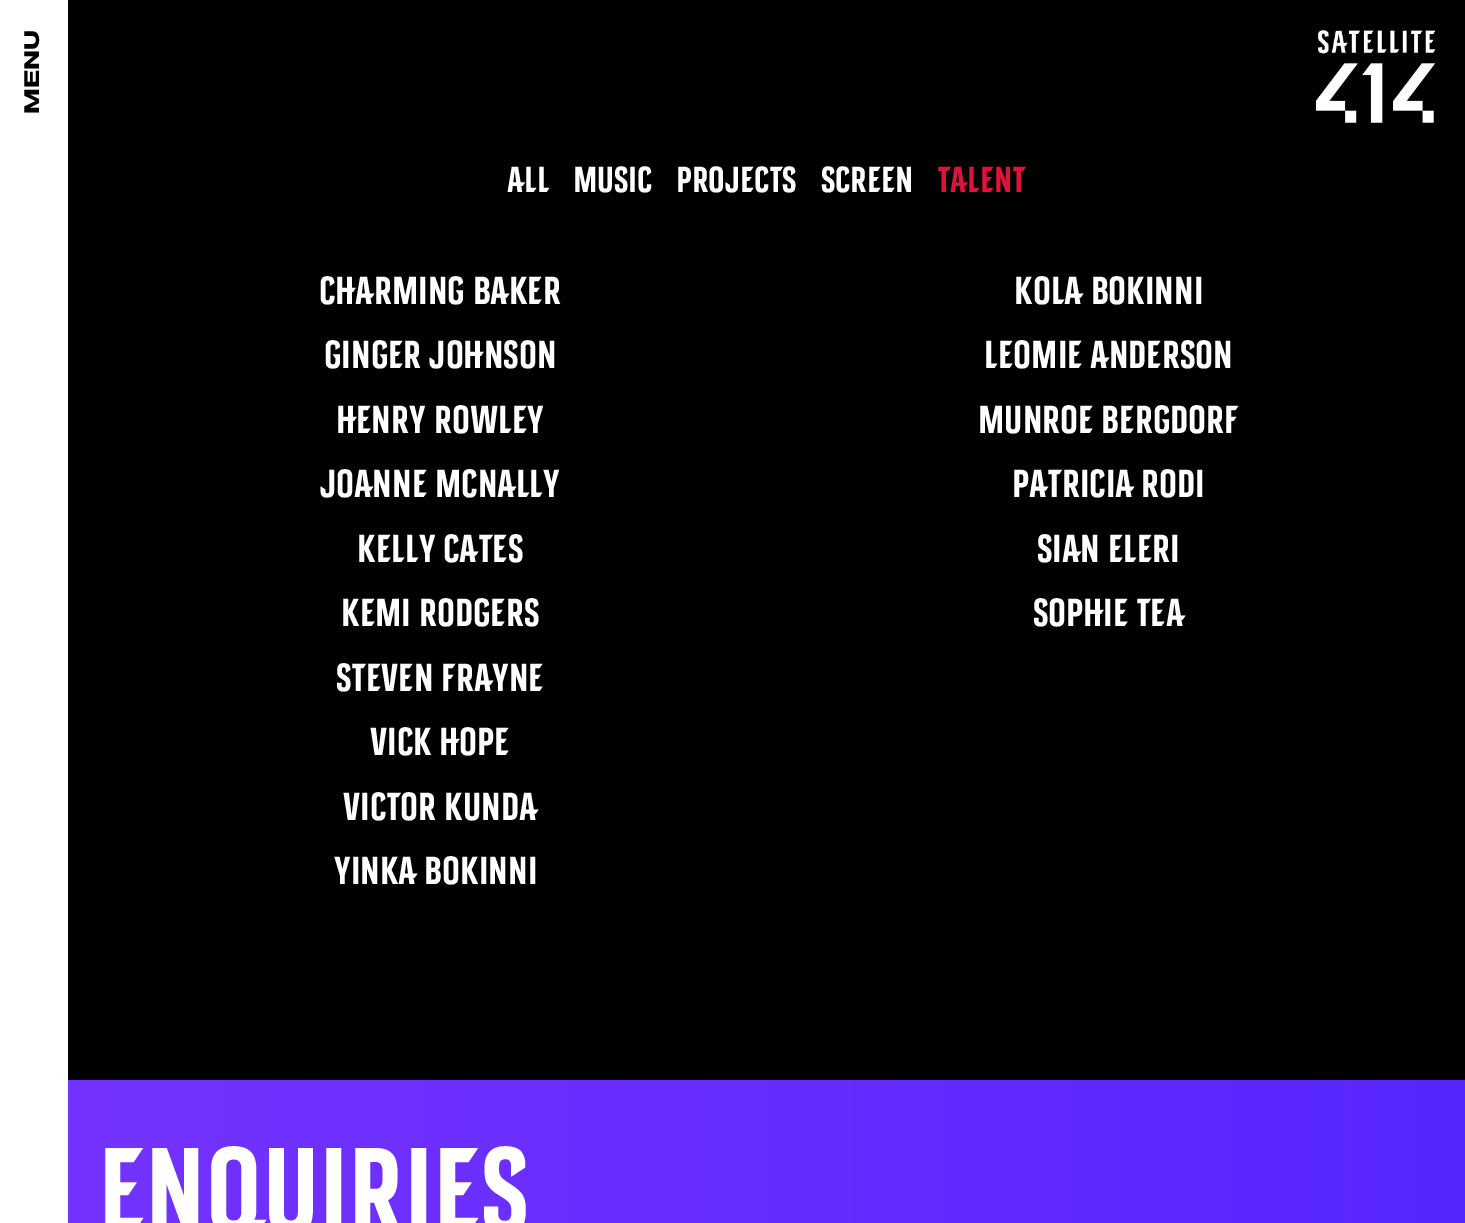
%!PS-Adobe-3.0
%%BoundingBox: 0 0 1465 1223
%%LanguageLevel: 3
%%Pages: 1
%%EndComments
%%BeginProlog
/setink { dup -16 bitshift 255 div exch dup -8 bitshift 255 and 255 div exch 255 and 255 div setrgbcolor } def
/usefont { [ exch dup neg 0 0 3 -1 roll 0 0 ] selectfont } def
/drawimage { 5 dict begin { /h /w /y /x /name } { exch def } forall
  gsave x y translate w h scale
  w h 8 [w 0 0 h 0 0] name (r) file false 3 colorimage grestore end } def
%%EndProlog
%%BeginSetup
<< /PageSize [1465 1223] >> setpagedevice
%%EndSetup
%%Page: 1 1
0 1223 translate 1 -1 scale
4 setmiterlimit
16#000000 setink
0 0 1465 1223 rectfill
16#FFFFFF setink
0 0 68 1223 rectfill
/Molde-Bold 21 usefont
16#000000 setink
gsave 39 114 translate -90 rotate 0 0 moveto (MENU) show grestore
(img1.raw) 1316 30 120 93 drawimage
/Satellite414-Regular 36 usefont
16#FFFFFF setink
[
    [(ALL) 507 192]
    [(MUSIC) 573 192]
    [(PROJECTS) 676 192]
    [(SCREEN) 821 192]
] { aload pop moveto show } forall
16#DC143C setink
937 192 moveto (TALENT) show
/Satellite414-Regular 39 usefont
16#FFFFFF setink
[
    [(CHARMING BAKER) 319 304]
    [(GINGER JOHNSON) 324 368]
    [(HENRY ROWLEY) 336 433]
    [(JOANNE MCNALLY) 320 497]
    [(KELLY CATES) 357 562]
    [(KEMI RODGERS) 341 626]
    [(KOLA BOKINNI) 1014 304]
    [(LEOMIE ANDERSON) 984 368]
    [(MUNROE BERGDORF) 978 433]
    [(PATRICIA RODI) 1012 497]
    [(SIAN ELERI) 1037 562]
    [(SOPHIE TEA) 1033 626]
    [(STEVEN FRAYNE) 336 691]
    [(VICK HOPE) 370 755]
    [(VICTOR KUNDA) 343 820]
    [(YINKA BOKINNI) 334 884]
] { aload pop moveto show } forall
gsave 68 1080 moveto 1465 1080 lineto 1465 1223 lineto 68 1223 lineto closepath clip newpath
<< /ShadingType 2 /ColorSpace /DeviceRGB /Coords [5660 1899 68 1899] /Extend [true true] /Function << /FunctionType 2 /Domain [0 1] /C0 [0 0 1] /C1 [0.455 0.2 1] /N 1 >> >> shfill grestore
/Satellite414-Regular 120 usefont
98 1232 moveto (ENQUIRIES) show
showpage
%%EOF
